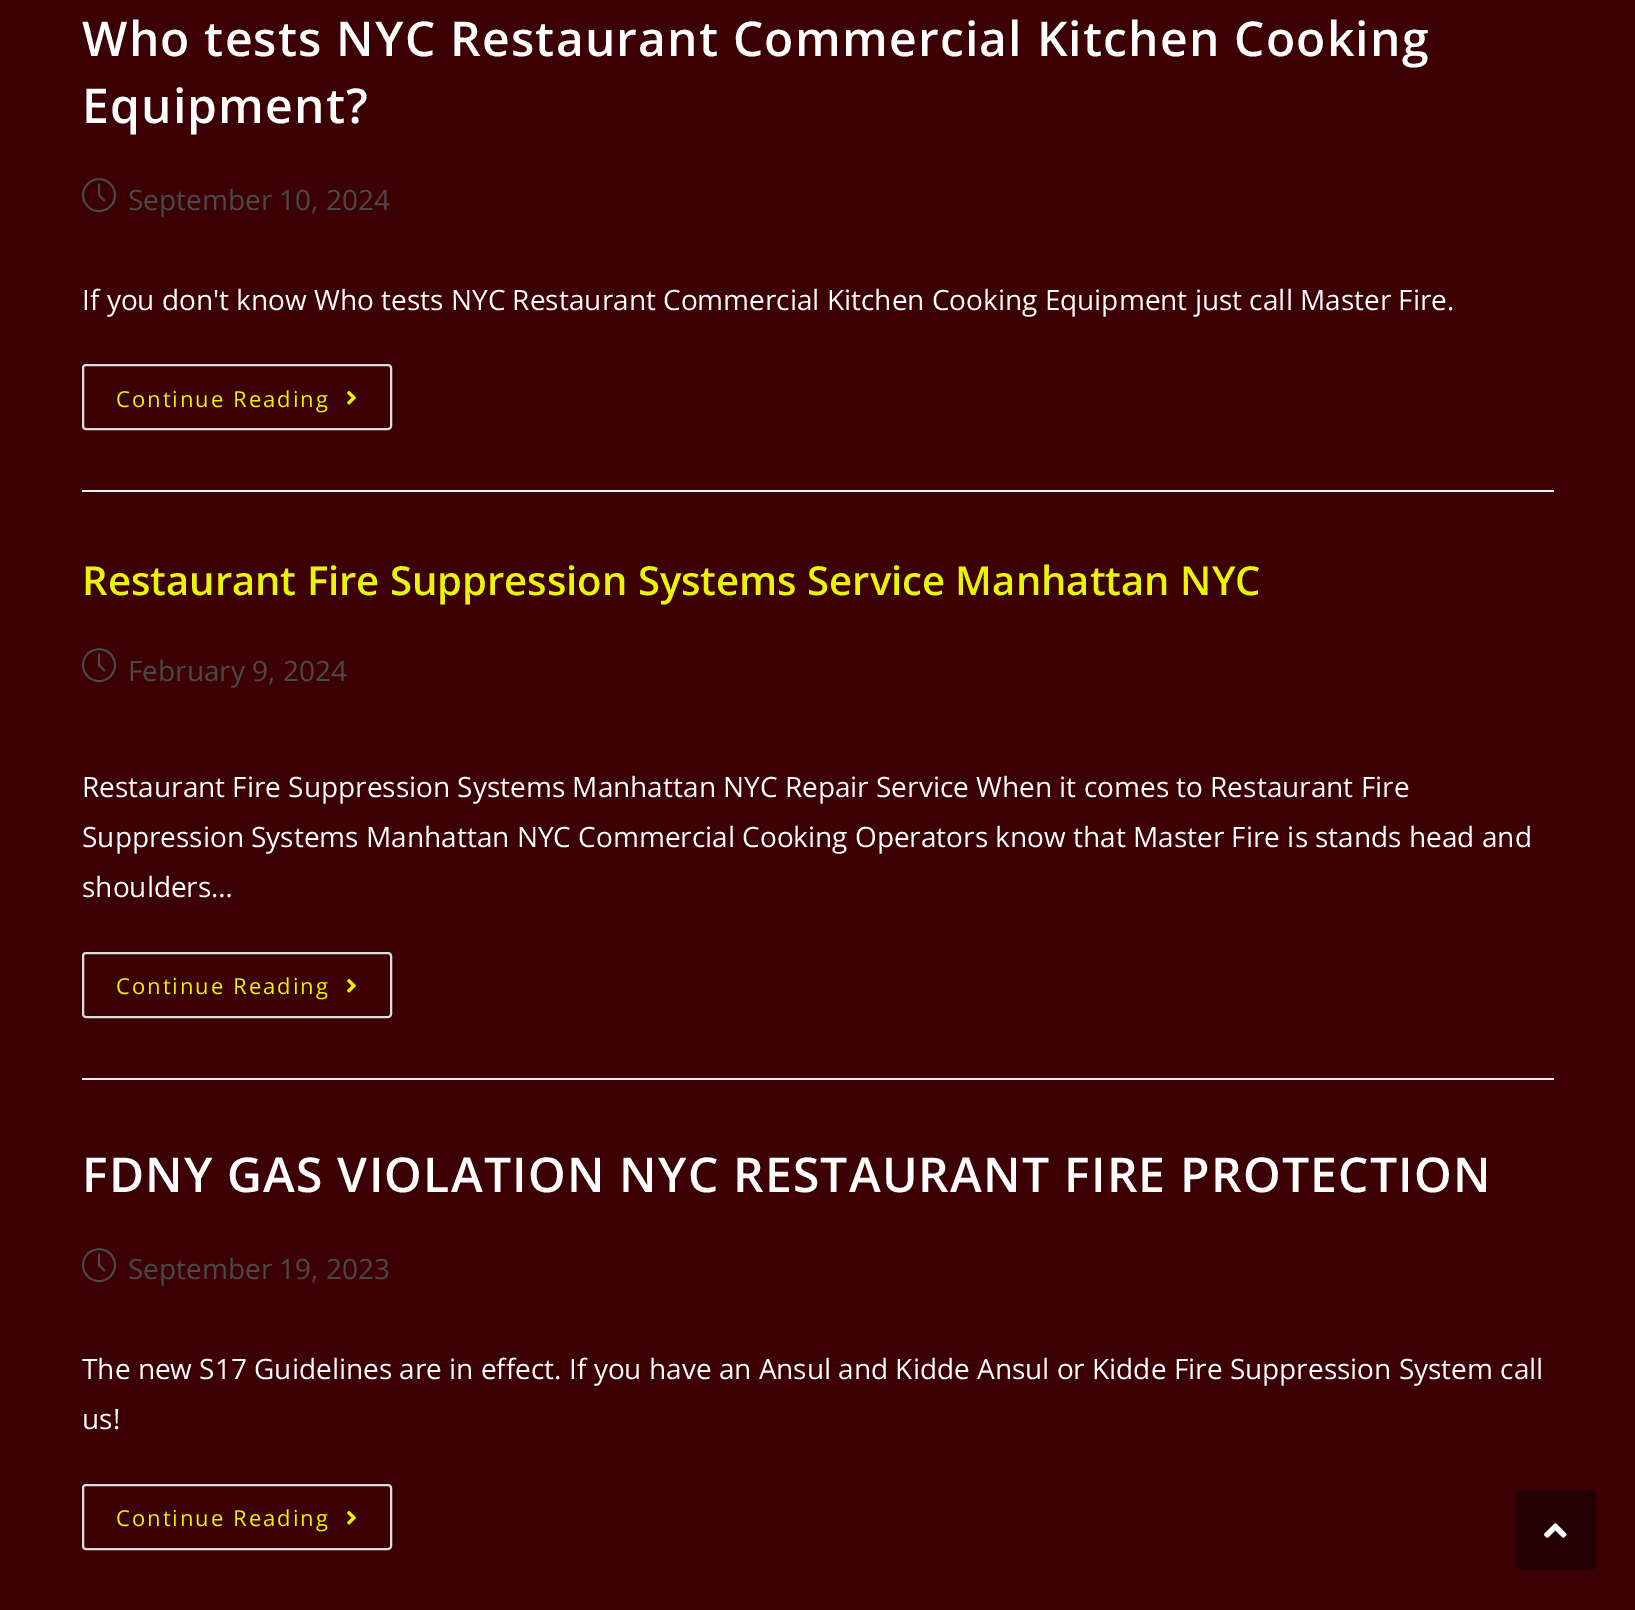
%!PS-Adobe-3.0
%%BoundingBox: 0 0 1635 1610
%%LanguageLevel: 3
%%Pages: 1
%%EndComments
%%BeginProlog
/setink { dup -16 bitshift 255 div exch dup -8 bitshift 255 and 255 div exch 255 and 255 div setrgbcolor } def
/usefont { [ exch dup neg 0 0 3 -1 roll 0 0 ] selectfont } def
/rrect { 5 dict begin { /r /h /w /y /x } { exch def } forall
  x r add y moveto x w add y 2 copy h add r arct x w add y h add x 1 index r arct
  x y h add x y r arct x y 2 copy exch w add exch r arct closepath end } def
/drawimage { 5 dict begin { /h /w /y /x /name } { exch def } forall
  gsave x y translate w h scale
  w h 8 [w 0 0 h 0 0] name (r) file false 3 colorimage grestore end } def
%%EndProlog
%%BeginSetup
<< /PageSize [1635 1610] >> setpagedevice
%%EndSetup
%%Page: 1 1
0 1610 translate 1 -1 scale
4 setmiterlimit
16#3C0004 setink
0 0 1635 1610 rectfill
16#F1F1F1 setink
82 490 1472 2 rectfill
/OpenSans-SemiBold 48 usefont
16#FFFFFF setink
82 56 moveto 1.2 0 (Who tests NYC Restaurant Commercial Kitchen Cooking) ashow
82 123 moveto 1.2 0 (Equipment?) ashow
(img1.raw) 82 178 34 35 drawimage
/OpenSans-Regular 28 usefont
16#4A4A4A setink
128 210 moveto (September 10, 2024) show
16#FFFFFF setink
82 310 moveto (If you don't know Who tests NYC Restaurant Commercial Kitchen Cooking Equipment just call Master Fire.) show
16#DDDDDD setink
2 setlinewidth
83 365 308 64 3 rrect stroke
/OpenSans-Regular 22 usefont
16#E8F602 setink
116 407 moveto 2 0 (Continue Reading) ashow
(img2.raw) 347 390 9 15 drawimage
16#F1F1F1 setink
82 1078 1472 2 rectfill
/OpenSans-SemiBold 40 usefont
16#E8F602 setink
82 595 moveto (Restaurant Fire Suppression Systems Service Manhattan NYC) show
(img1.raw) 82 648 34 35 drawimage
/OpenSans-Regular 28 usefont
16#4A4A4A setink
128 681 moveto (February 9, 2024) show
16#FFFFFF setink
[
    [(Restaurant Fire Suppression Systems Manhattan NYC Repair Service When it comes to Restaurant Fire) 82 797]
    [(Suppression Systems Manhattan NYC Commercial Cooking Operators know that Master Fire is stands head and) 82 847]
    [(shoulders…) 82 897]
] { aload pop moveto show } forall
16#DDDDDD setink
83 953 308 64 3 rrect stroke
/OpenSans-Regular 22 usefont
16#E8F602 setink
116 994 moveto 2 0 (Continue Reading) ashow
(img2.raw) 347 978 9 15 drawimage
/OpenSans-SemiBold 48 usefont
16#FFFFFF setink
82 1192 moveto 1.2 0 (FDNY GAS VIOLATION NYC RESTAURANT FIRE PROTECTION) ashow
(img1.raw) 82 1248 34 35 drawimage
/OpenSans-Regular 28 usefont
16#4A4A4A setink
128 1279 moveto (September 19, 2023) show
16#FFFFFF setink
82 1379 moveto (The new S17 Guidelines are in effect. If you have an Ansul and Kidde Ansul or Kidde Fire Suppression System call) show
82 1429 moveto (us!) show
16#DDDDDD setink
83 1485 308 64 3 rrect stroke
/OpenSans-Regular 22 usefont
16#E8F602 setink
116 1526 moveto 2 0 (Continue Reading) ashow
(img2.raw) 347 1510 9 15 drawimage
16#240002 setink
1516 1490 80 80 4 rrect fill
(img3.raw) 1544 1523 23 15 drawimage
showpage
%%EOF
